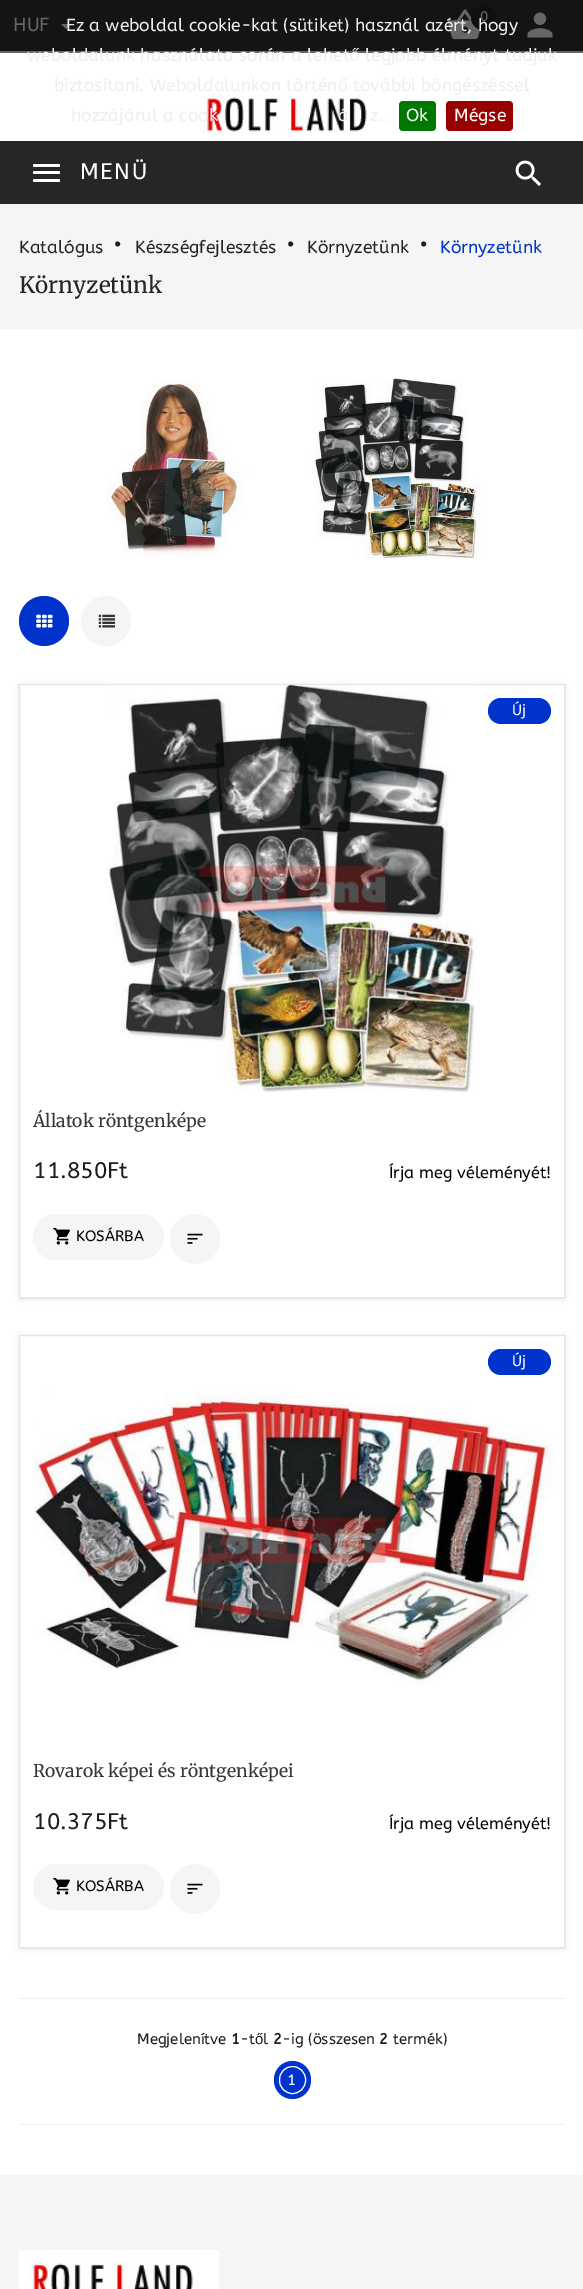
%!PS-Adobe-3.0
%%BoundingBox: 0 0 583 2289
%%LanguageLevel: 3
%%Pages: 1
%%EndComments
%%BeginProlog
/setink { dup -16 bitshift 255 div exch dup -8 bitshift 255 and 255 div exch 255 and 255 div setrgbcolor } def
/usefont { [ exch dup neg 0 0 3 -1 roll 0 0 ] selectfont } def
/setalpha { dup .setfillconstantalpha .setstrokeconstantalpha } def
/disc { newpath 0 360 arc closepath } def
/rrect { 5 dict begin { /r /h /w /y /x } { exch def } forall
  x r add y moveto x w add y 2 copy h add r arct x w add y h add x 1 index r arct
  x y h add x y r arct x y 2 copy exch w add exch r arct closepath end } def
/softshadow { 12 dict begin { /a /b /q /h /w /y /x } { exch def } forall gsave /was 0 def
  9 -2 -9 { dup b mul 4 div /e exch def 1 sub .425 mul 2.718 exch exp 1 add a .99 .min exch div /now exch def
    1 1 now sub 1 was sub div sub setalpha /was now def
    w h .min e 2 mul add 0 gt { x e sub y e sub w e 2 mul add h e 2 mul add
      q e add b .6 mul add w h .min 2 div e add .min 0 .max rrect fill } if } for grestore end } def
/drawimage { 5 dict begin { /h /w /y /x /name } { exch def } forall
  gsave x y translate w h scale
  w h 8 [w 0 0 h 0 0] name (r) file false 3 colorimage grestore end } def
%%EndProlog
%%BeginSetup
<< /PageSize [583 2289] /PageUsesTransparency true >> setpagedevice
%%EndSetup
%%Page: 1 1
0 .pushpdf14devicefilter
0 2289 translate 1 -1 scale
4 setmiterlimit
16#FFFFFF setink
0 0 583 2289 rectfill
16#666666 setink
0 51 583 2 rectfill
16#141414 setink
0 0 583 51 rectfill
/ABeeZee-Regular 19 usefont
16#666666 setink
13 31 moveto (HUF) show
61 24 moveto 71 24 lineto 66 29 lineto closepath fill
(img1.raw) 447 9 34 31 drawimage
16#0F0F0F setink
483.5 17.5 12.5 disc fill
/ABeeZee-Regular 14 usefont
16#666666 setink
480 21 moveto (0) show
(img2.raw) 527 12 26 26 drawimage
(img3.raw) 203 94 164 40 drawimage
16#262626 setink
0 141 583 63 rectfill
16#FFFFFF setink
33 164 27 3 1.5 rrect fill
/ABeeZee-Regular 22.5 usefont
80 179 moveto 1.5 0 (MENÜ) ashow
33 171 27 3 1.5 rrect fill
33 179 27 3 1.5 rrect fill
(img4.raw) 515 160 26 26 drawimage
16#F5F5F5 setink
0 204 583 125 rectfill
/ABeeZee-Regular 17.5 usefont
16#252525 setink
19 253 moveto (Katalógus) show
/ABeeZee-Regular 38 usefont
16#1D1D1D setink
112 246 moveto (.) show
/ABeeZee-Regular 17.5 usefont
16#252525 setink
135 253 moveto (Készségfejlesztés) show
/ABeeZee-Regular 38 usefont
16#1D1D1D setink
285 246 moveto (.) show
/ABeeZee-Regular 17.5 usefont
16#252525 setink
307 253 moveto (Környzetünk) show
/ABeeZee-Regular 38 usefont
16#1D1D1D setink
418 246 moveto (.) show
/ABeeZee-Regular 17.5 usefont
16#0033CC setink
440 253 moveto (Környzetünk) show
/Merriweather-Regular 22.5 usefont
16#252525 setink
19 293 moveto (Környzetünk) show
(img5.raw) 106 378 375 181 drawimage
16#0033CC setink
44 621 25 disc fill
(img6.raw) 36 614 17 14 drawimage
16#F5F5F5 setink
106 621 25 disc fill
(img7.raw) 98 614 17 14 drawimage
gsave
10 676 moveto 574 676 lineto 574 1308 lineto 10 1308 lineto closepath 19 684 moveto 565 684 lineto 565 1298 lineto 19 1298 lineto closepath eoclip newpath
16#000000 setink
19 685 546 614 0 2.5 0.1 softshadow
grestore
0.1 setalpha
16#000000 setink
19.5 684.5 545 613 rectstroke
1 setalpha
(img8.raw) 107 685 369 408 drawimage
16#0033CC setink
488 698 63 26 13 rrect fill
/ABeeZee-Regular 15 usefont
16#FFFFFF setink
512 715 moveto (Új) show
/Merriweather-Regular 17.5 usefont
16#373737 setink
33 1127 moveto (Állatok röntgenképe) show
/ABeeZee-Regular 22.5 usefont
16#1D1D1D setink
33 1178 moveto (11.850Ft) show
/ABeeZee-Regular 16.25 usefont
16#000000 setink
389 1178 moveto (Írja meg véleményét!) show
16#F5F5F5 setink
33 1214 131 46 23 rrect fill
(img9.raw) 53 1227 17 18 drawimage
/ABeeZee-Regular 15 usefont
16#000000 setink
76 1241 moveto (KOSÁRBA) show
16#F5F5F5 setink
195 1239 25 disc fill
(img10.raw) 187 1233 16 11 drawimage
gsave
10 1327 moveto 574 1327 lineto 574 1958 lineto 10 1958 lineto closepath 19 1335 moveto 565 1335 lineto 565 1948 lineto 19 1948 lineto closepath eoclip newpath
16#000000 setink
19 1336 546 613 0 2.5 0.1 softshadow
grestore
0.1 setalpha
16#000000 setink
19.5 1335.5 545 612 rectstroke
1 setalpha
16#0033CC setink
488 1349 63 26 13 rrect fill
16#FFFFFF setink
512 1366 moveto (Új) show
(img11.raw) 33 1391 523 293 drawimage
/Merriweather-Regular 17.5 usefont
16#373737 setink
33 1777 moveto (Rovarok képei és röntgenképei) show
/ABeeZee-Regular 22.5 usefont
16#1D1D1D setink
33 1829 moveto (10.375Ft) show
/ABeeZee-Regular 16.25 usefont
16#000000 setink
389 1829 moveto (Írja meg véleményét!) show
16#F5F5F5 setink
33 1864 131 46 23 rrect fill
(img9.raw) 53 1877 17 18 drawimage
/ABeeZee-Regular 15 usefont
16#000000 setink
76 1891 moveto (KOSÁRBA) show
16#F5F5F5 setink
195 1889 25 disc fill
(img10.raw) 187 1883 16 11 drawimage
16#EFEFEF setink
19 1998 546 1 rectfill
19 2124 546 1 rectfill
16#1D1D1D setink
137 2044 moveto (Megjelenítve) show
/ABeeZee-Bold 15 usefont
231 2044 moveto (1) show
/ABeeZee-Regular 15 usefont
240 2044 moveto (-t) show
/LiberationSans-Regular 15 usefont
255 2044 moveto (ő) show
/ABeeZee-Regular 15 usefont
263 2044 moveto (l) show
/ABeeZee-Bold 15 usefont
273 2044 moveto (2) show
/ABeeZee-Regular 15 usefont
282 2044 moveto (-ig \(összesen) show
/ABeeZee-Bold 15 usefont
379 2044 moveto (2) show
/ABeeZee-Regular 15 usefont
393 2044 moveto (termék\)) show
16#0033CC setink
274 2061 37 38 18.5 rrect fill
16#FFFFFF setink
279.5 2066.5 26 27 13 rrect stroke
287 2085 moveto (1) show
16#F5F5F5 setink
0 2175 583 114 rectfill
(img12.raw) 19 2250 200 39 drawimage
/ABeeZee-Regular 17.5 usefont
16#EEEEEE setink
66 31 moveto (Ez a weboldal cookie-kat \(sütiket\) használ azért, hogy) show
27 61 moveto (weboldalunk használata során a lehet) show
/LiberationSans-Regular 17.5 usefont
350 61 moveto (ő) show
/ABeeZee-Regular 17.5 usefont
365 61 moveto (legjobb élményt tudjuk) show
54 91 moveto (biztosítani. Weboldalunkon történ) show
/LiberationSans-Regular 17.5 usefont
338 91 moveto (ő) show
/ABeeZee-Regular 17.5 usefont
[
    [(további böngészéssel) 353 91]
    [(hozzájárul a cook) 71 121]
    [(á) 338 121]
    [(z..) 370 121]
] { aload pop moveto show } forall
16#007700 setink
399 101 37 30 4 rrect fill
16#FFFFFF setink
406 121 moveto (Ok) show
16#990000 setink
446 101 67 30 4 rrect fill
16#FFFFFF setink
454 121 moveto (Mégse) show
.poppdf14devicefilter showpage
%%EOF
